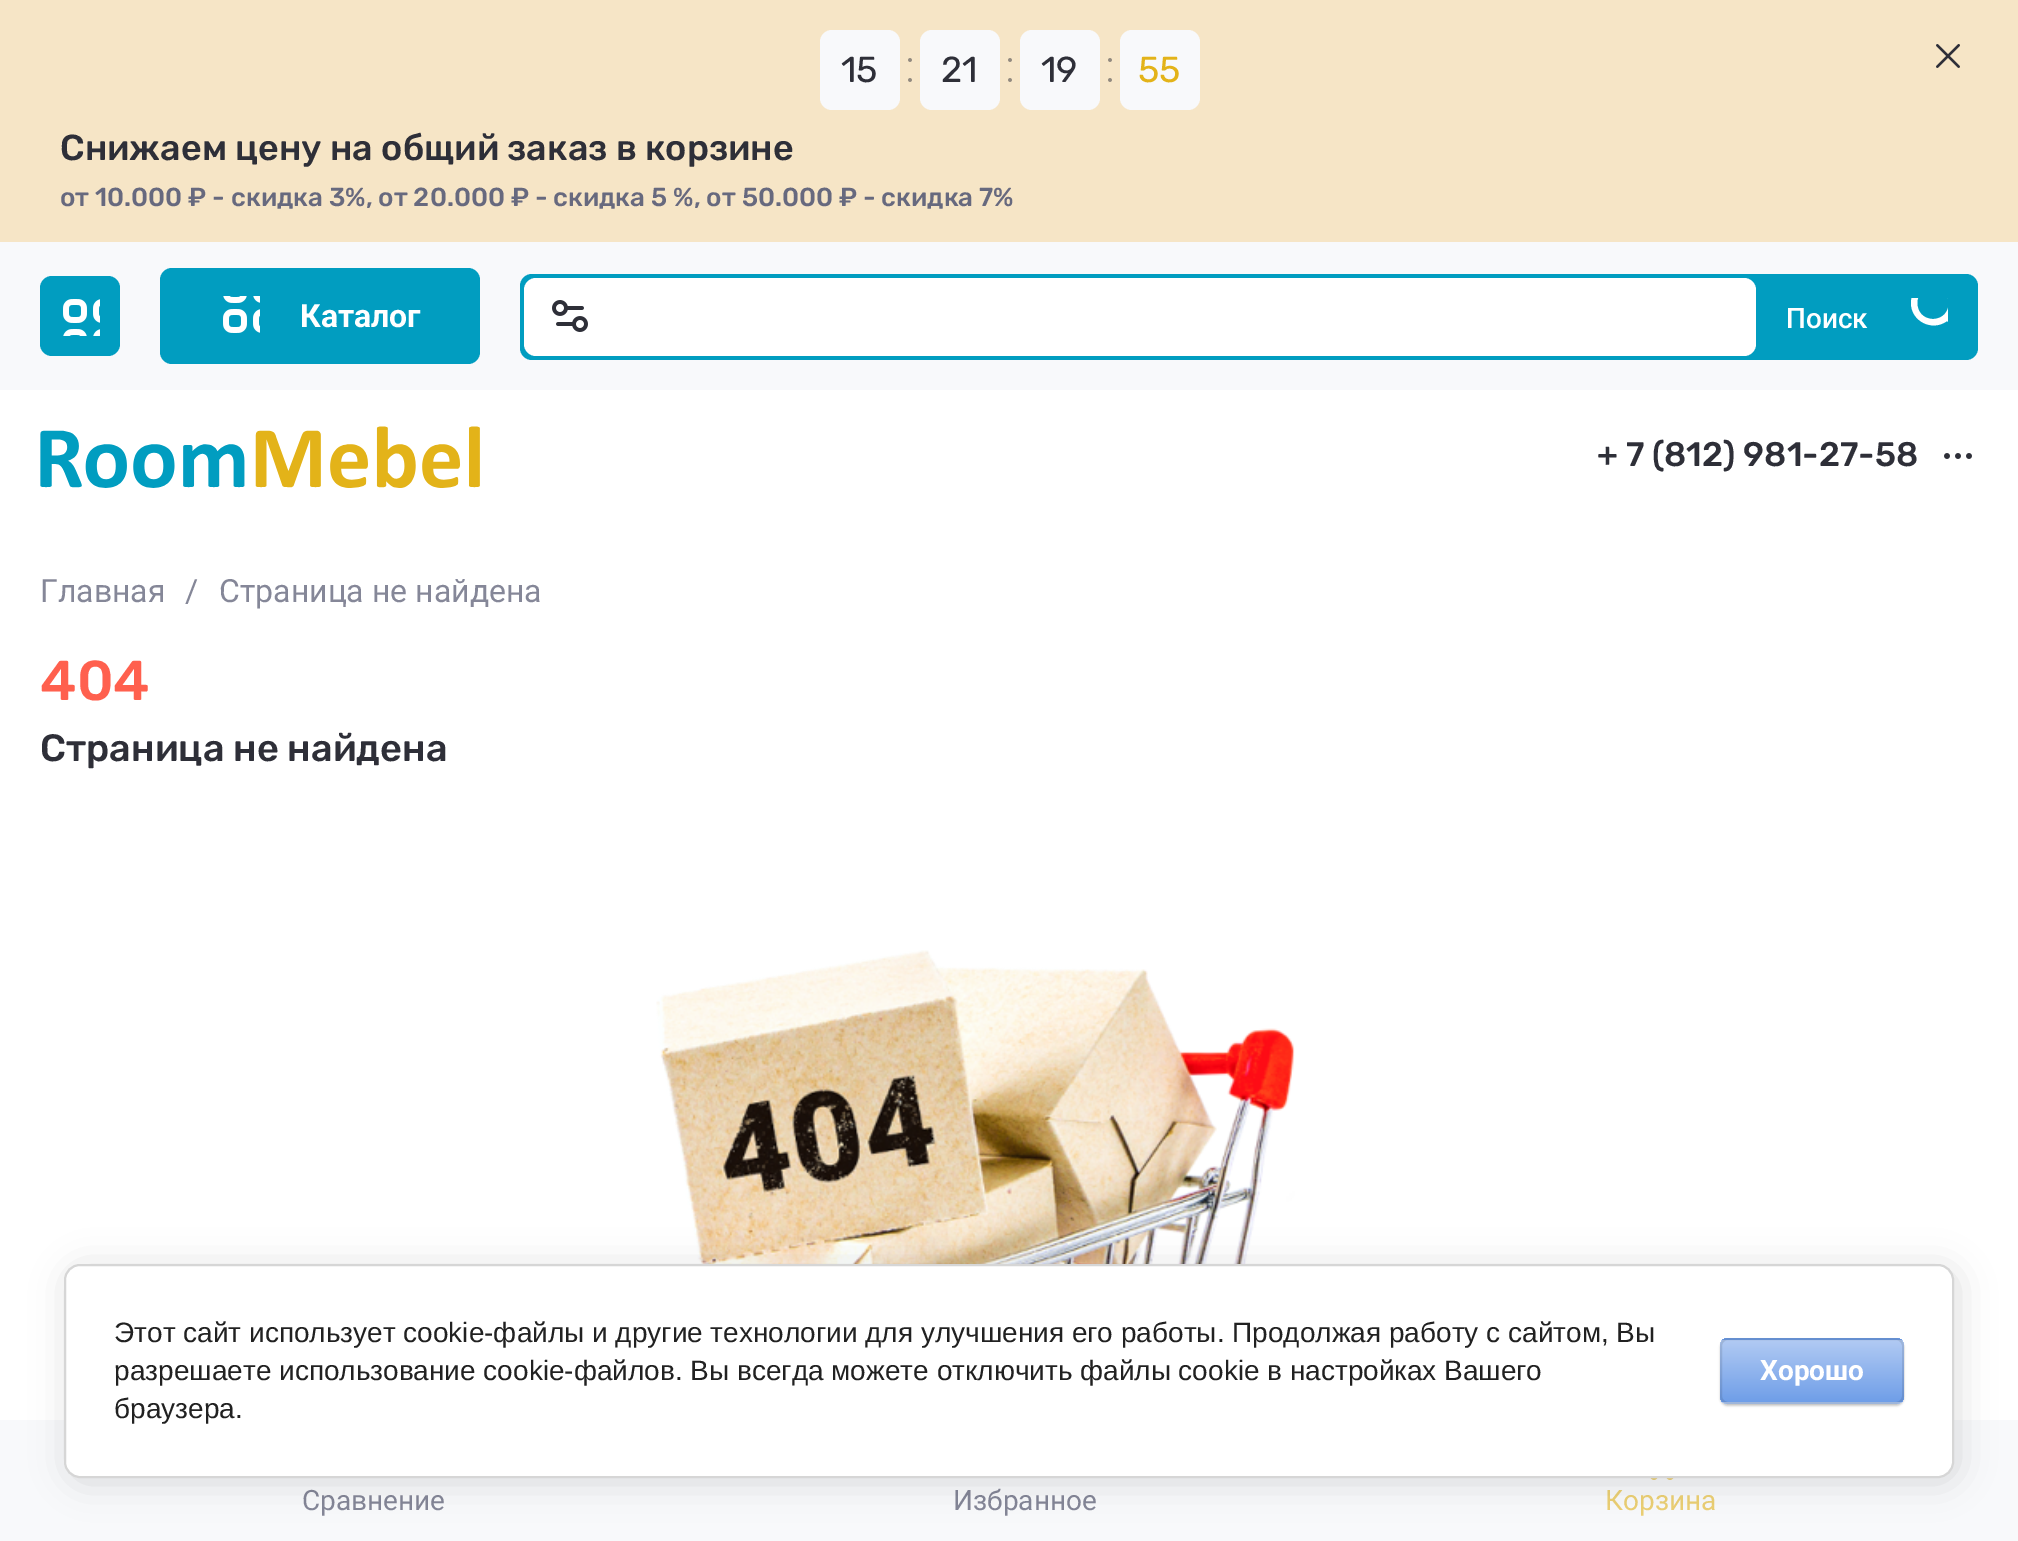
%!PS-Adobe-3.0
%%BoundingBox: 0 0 2018 1541
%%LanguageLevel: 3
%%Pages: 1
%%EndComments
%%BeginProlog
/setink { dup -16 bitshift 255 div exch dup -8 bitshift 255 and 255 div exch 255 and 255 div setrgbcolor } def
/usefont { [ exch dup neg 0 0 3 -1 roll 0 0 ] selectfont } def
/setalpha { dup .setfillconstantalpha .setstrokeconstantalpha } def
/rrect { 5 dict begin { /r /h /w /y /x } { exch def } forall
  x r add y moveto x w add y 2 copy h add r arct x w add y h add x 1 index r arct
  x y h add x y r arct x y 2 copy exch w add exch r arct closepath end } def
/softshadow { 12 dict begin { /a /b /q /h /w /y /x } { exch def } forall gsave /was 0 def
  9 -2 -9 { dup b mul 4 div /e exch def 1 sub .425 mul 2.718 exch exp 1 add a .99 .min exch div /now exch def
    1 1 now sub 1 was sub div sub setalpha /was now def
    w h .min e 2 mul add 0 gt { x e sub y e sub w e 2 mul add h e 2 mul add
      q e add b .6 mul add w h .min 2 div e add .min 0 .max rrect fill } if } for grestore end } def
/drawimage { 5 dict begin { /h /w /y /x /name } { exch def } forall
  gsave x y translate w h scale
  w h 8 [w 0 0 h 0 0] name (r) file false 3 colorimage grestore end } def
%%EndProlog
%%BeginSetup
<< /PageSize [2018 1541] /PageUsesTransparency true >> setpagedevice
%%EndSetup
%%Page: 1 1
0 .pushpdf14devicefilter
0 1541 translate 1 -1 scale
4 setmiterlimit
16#FFFFFF setink
0 0 2018 1541 rectfill
16#F6E5C6 setink
0 0 2018 242 rectfill
16#F8F9FB setink
820 30 80 80 12 rrect fill
/Rubik-Regular 36 usefont
16#2E2F38 setink
841 82 moveto (15) show
(img1.raw) 908 58 4 24 drawimage
16#F8F9FB setink
920 30 80 80 12 rrect fill
16#2E2F38 setink
941 82 moveto (21) show
(img1.raw) 1008 58 4 24 drawimage
16#F8F9FB setink
1020 30 80 80 12 rrect fill
16#2E2F38 setink
1041 82 moveto (19) show
(img1.raw) 1108 58 4 24 drawimage
16#F8F9FB setink
1120 30 80 80 12 rrect fill
16#E3B319 setink
1138 82 moveto (55) show
(img2.raw) 1936 44 24 24 drawimage
/Rubik-Medium 36 usefont
16#2E2F38 setink
60 160 moveto (Снижаем цену на общий заказ в корзине) show
/Rubik-Medium 26 usefont
16#67697E setink
60 206 moveto (от 10.000 ₽ - скидка 3%, от 20.000 ₽ - скидка 5 %, от 50.000 ₽ - скидка 7%) show
/Roboto-Regular 32 usefont
16#858798 setink
[
    [(Главная) 40 602]
    [(/) 185 602]
    [(Страница не найдена) 219 602]
] { aload pop moveto show } forall
/Rubik-Medium 56 usefont
16#FF604E setink
40 700 moveto (404) show
/Rubik-Medium 38 usefont
16#2E2F38 setink
40 761 moveto (Страница не найдена) show
(img3.raw) 656 950 639 314 drawimage
16#F8F9FB setink
0 242 2018 148 rectfill
16#019DC0 setink
40 276 80 80 12 rrect fill
(img4.raw) 63 299 37 37 drawimage
160 268 320 96 12 rrect fill
(img5.raw) 223 296 37 37 drawimage
/Roboto-Bold 32 usefont
16#FFFFFF setink
300 327 moveto (Каталог) show
16#019DC0 setink
520 274 1458 86 12 rrect fill
16#FFFFFF setink
524 278 1232 78 12 rrect fill
(img6.raw) 552 300 36 32 drawimage
/Roboto-Medium 28 usefont
1786 328 moveto (Поиск) show
gsave
1908 298 40 40 rectclip
1933 287 moveto 1912 287 1912 319 1933 319 curveto 1954 319 1954 287 1933 287 curveto closepath 1911 303 moveto 1911 297 1913 292 1918 287 curveto 1937 268 1967 295 1951 317 curveto 1962 328 lineto 1962 329 1962 330 1961 331 curveto 1959 335 1954 328 1952 326 curveto 1947 321 lineto 1932 332 1911 321 1911 303 curveto closepath eofill
grestore
(img7.raw) 40 426 440 62 drawimage
/Rubik-Medium 34 usefont
16#2E2F38 setink
1597 466 moveto (+ 7 \(812\) 981-27-58) show
(img8.raw) 1944 453 28 6 drawimage
16#F8F9FB setink
0 1420 2018 121 rectfill
/Roboto-Regular 28 usefont
16#858798 setink
302 1510 moveto (Сравнение) show
953 1510 moveto (Избранное) show
(img9.raw) 1650 1478 24 2 drawimage
16#EBCF73 setink
1605 1510 moveto (Корзина) show
16#000000 setink
68 1268 1890 214 16 18 0.14 softshadow
16#FFFFFF setink
65 1265 1888 212 15 rrect gsave fill grestore
16#D6D6D6 setink
2 setlinewidth
stroke
/LiberationSans-Regular 28 usefont
16#212121 setink
[
    [(Этот сайт использует cookie-файлы и другие технологии для улучшения его работы. Продолжая работу с сайтом, Вы) 114 1342]
    [(разрешаете использование cookie-файлов. Вы всегда можете отключить файлы cookie в настройках Вашего) 114 1380]
    [(браузера.) 114 1418]
] { aload pop moveto show } forall
16#000000 setink
1720 1340 184 66 8 1 0.2 softshadow
gsave
1720 1338 184 66 8 rrect clip newpath
gsave 1720 1338 moveto 1904 1338 lineto 1904 1340 lineto 1720 1340 lineto closepath clip newpath
<< /ShadingType 2 /ColorSpace /DeviceRGB /Coords [1812 1278 1812 1340] /Extend [true true] /Function << /FunctionType 2 /Domain [0 1] /C0 [0.694 0.792 0.953] /C1 [0.435 0.62 0.91] /N 1 >> >> shfill grestore
gsave 1720 1340 moveto 1904 1340 lineto 1904 1402 lineto 1720 1402 lineto closepath clip newpath
<< /ShadingType 2 /ColorSpace /DeviceRGB /Coords [1812 1340 1812 1402] /Extend [true true] /Function << /FunctionType 2 /Domain [0 1] /C0 [0.694 0.792 0.953] /C1 [0.435 0.62 0.91] /N 1 >> >> shfill grestore
gsave 1720 1402 moveto 1904 1402 lineto 1904 1404 lineto 1720 1404 lineto closepath clip newpath
<< /ShadingType 2 /ColorSpace /DeviceRGB /Coords [1812 1402 1812 1464] /Extend [true true] /Function << /FunctionType 2 /Domain [0 1] /C0 [0.694 0.792 0.953] /C1 [0.435 0.62 0.91] /N 1 >> >> shfill grestore
grestore
0.1 setalpha
1721 1339 182 64 7 rrect stroke
/Roboto-Bold 28 usefont
1 setalpha
16#FFFFFF setink
1760 1380 moveto (Хорошо) show
.poppdf14devicefilter showpage
%%EOF
